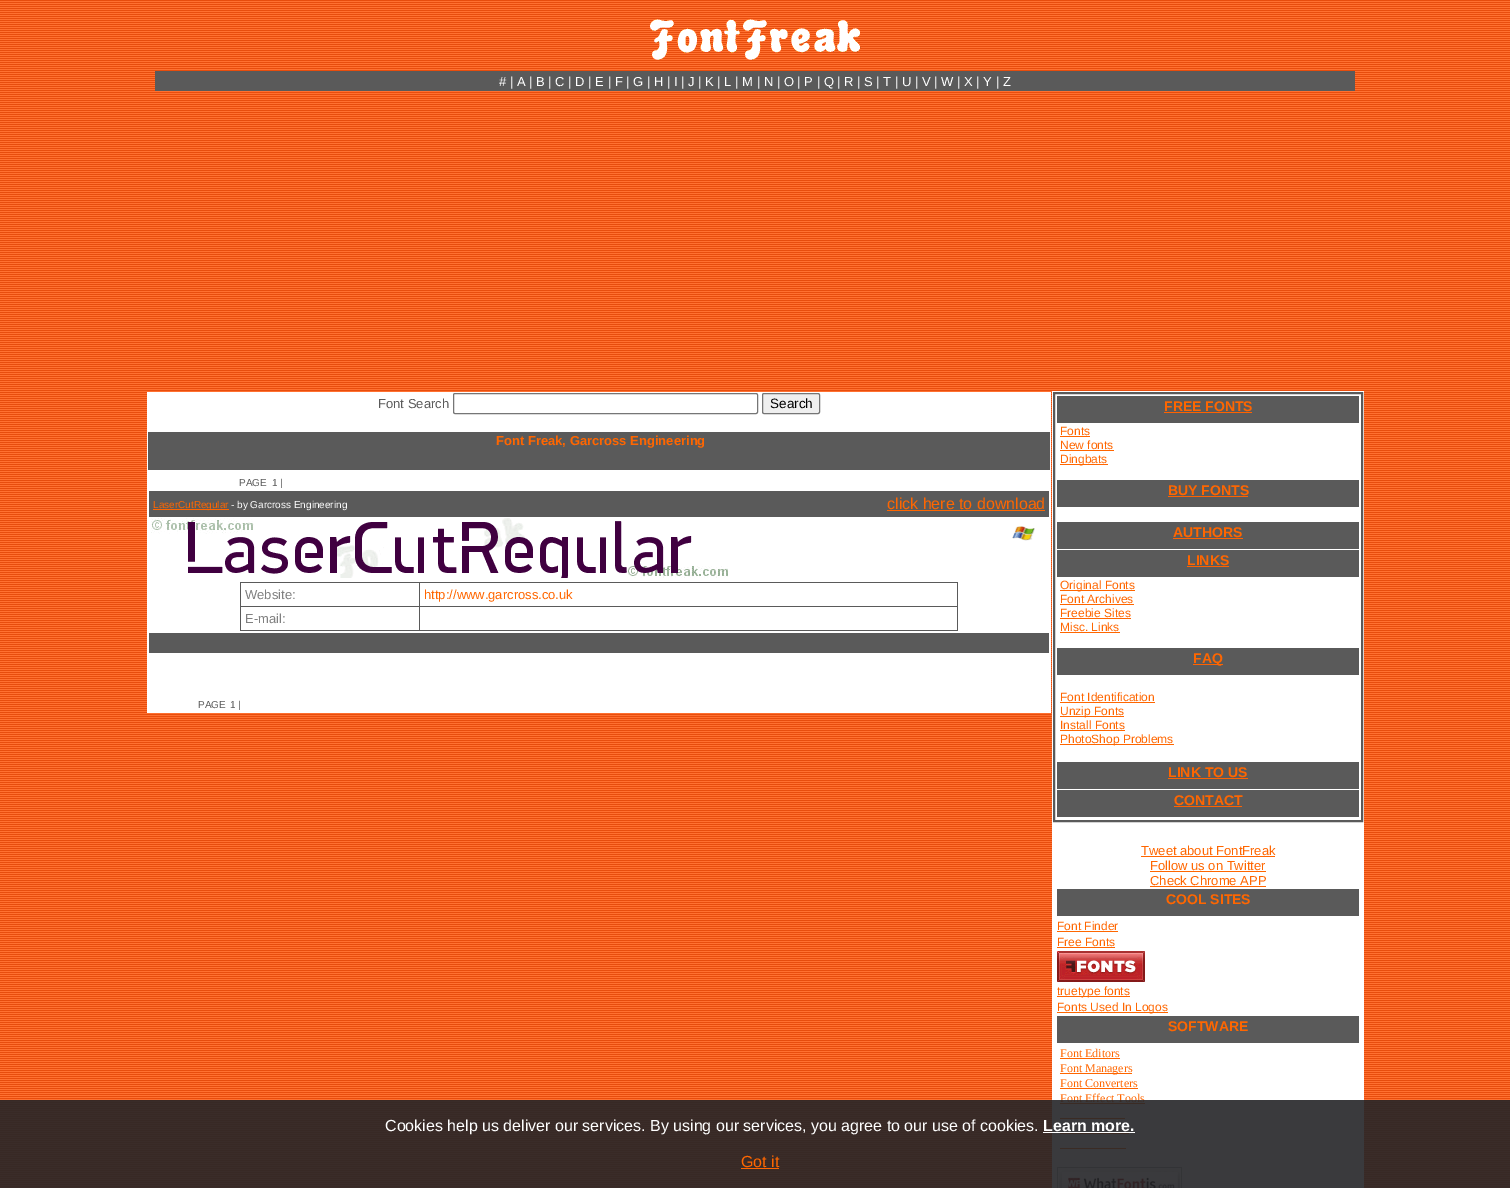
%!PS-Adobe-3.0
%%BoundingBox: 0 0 1510 1188
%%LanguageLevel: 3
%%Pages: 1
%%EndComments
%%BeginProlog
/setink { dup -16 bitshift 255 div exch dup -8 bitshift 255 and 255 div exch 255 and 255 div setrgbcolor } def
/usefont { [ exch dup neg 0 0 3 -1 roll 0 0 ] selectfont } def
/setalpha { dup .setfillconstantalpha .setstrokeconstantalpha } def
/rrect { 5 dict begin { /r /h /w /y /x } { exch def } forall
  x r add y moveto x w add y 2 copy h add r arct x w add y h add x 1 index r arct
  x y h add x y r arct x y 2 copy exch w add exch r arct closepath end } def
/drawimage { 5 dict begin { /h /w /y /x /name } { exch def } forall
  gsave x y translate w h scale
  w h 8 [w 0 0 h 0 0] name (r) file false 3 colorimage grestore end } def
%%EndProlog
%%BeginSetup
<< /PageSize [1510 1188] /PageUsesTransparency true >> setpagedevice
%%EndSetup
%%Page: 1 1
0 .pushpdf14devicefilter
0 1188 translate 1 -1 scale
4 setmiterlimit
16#FFFFFF setink
0 0 1510 1188 rectfill
(img1.raw) 0 0 1510 1188 drawimage
(img2.raw) 650 19 211 41 drawimage
16#5A5A5A setink
155 71 1200 20 rectfill
/LiberationSans-Regular 13 usefont
16#FFFFFF setink
499 86 moveto (# | A | B | C | D | E | F | G | H | I | J | K | L | M | N | O | P | Q | R | S | T | U | V | W | X | Y | Z) show
147 392 904 321 rectfill
16#5A5A5A setink
378 408 moveto (Font Search) show
16#767676 setink
453.5 393.5 304 20 1.5 rrect stroke
16#EFEFEF setink
762.5 393.5 57 20 1.5 rrect gsave fill grestore
16#767676 setink
stroke
/LiberationSans-Regular 13.5 usefont
16#000000 setink
770 408 moveto (Search) show
16#5A5A5A setink
148 432 902 38 rectfill
/LiberationSans-Bold 13 usefont
16#FF6600 setink
496 445 moveto (Font Freak, Garcross Engineering) show
/LiberationSans-Regular 10 usefont
16#5A5A5A setink
239 486 moveto (PAGE) show
272 486 moveto (1 |) show
149 491 900 26 rectfill
16#FF6600 setink
153 509 76 1 rectfill
153 508 moveto (LaserCutRegular) show
16#FFFFFF setink
231 508 moveto (- by Garcross Engineering) show
/LiberationSans-Regular 16 usefont
16#FF6600 setink
887 509 moveto (click here to download) show
887 510 158 1 rectfill
(img3.raw) 151 518 577 60 drawimage
(img4.raw) 1012 526 23 15 drawimage
[
    [419 582 539 1 16#5A5A5A]
    [419 606 539 1 16#5A5A5A]
    [957 606 1 25 16#5A5A5A]
    [419 630 539 1 16#5A5A5A]
    [419 606 1 25 16#5A5A5A]
    [240 606 180 1 16#5A5A5A]
    [419 582 1 25 16#5A5A5A]
    [240 582 180 1 16#5A5A5A]
    [240 630 180 1 16#5A5A5A]
    [240 606 1 25 16#5A5A5A]
    [240 582 1 25 16#5A5A5A]
] { aload pop setink rectfill } forall
/LiberationSans-Regular 13 usefont
16#808080 setink
245 599 moveto (Website:) show
16#5A5A5A setink
957 582 1 25 rectfill
16#FF6600 setink
424 599 moveto (http://www.garcross.co.uk) show
16#808080 setink
245 623 moveto (E-mail:) show
16#5A5A5A setink
149 633 900 20 rectfill
/LiberationSans-Regular 10 usefont
198 708 moveto (PAGE) show
230 708 moveto (1 |) show
16#FFFFFF setink
1052 391 312 797 rectfill
16#5A5A5A setink
2 setlinewidth
1054 393 308 428 rectstroke
1057 396 302 27 rectfill
/LiberationSans-Bold 14 usefont
16#FF6600 setink
1164 411 moveto (FREE FONTS) show
16#FF6200 setink
1164 412 88 1 rectfill
/LiberationSans-Regular 12 usefont
16#FF6600 setink
1060 435 moveto (Fonts) show
1060 436 30 1 rectfill
1060 449 moveto (New fonts) show
1060 450 54 1 rectfill
1060 464 48 1 rectfill
1060 463 moveto (Dingbats) show
16#5A5A5A setink
1057 480 302 27 rectfill
/LiberationSans-Bold 14 usefont
16#FF6600 setink
1168 495 moveto (BUY FONTS) show
16#FF6200 setink
1168 496 80 1 rectfill
16#5A5A5A setink
1057 522 302 27 rectfill
16#FF6600 setink
1173 537 moveto (AUTHORS) show
16#FF6200 setink
1173 538 70 1 rectfill
16#5A5A5A setink
1057 550 302 27 rectfill
16#FF6600 setink
1187 565 moveto (LINKS) show
16#FF6200 setink
1187 566 42 1 rectfill
16#FF6600 setink
1060 590 75 1 rectfill
/LiberationSans-Regular 12 usefont
1060 589 moveto (Original Fonts) show
1060 603 moveto (Font Archives) show
1060 604 74 1 rectfill
1060 617 moveto (Freebie Sites) show
1060 618 71 1 rectfill
1060 631 moveto (Misc. Links) show
[
    [1060 632 60 1 16#FF6600]
    [1057 648 302 27 16#5A5A5A]
    [1193 664 30 1 16#FF6200]
] { aload pop setink rectfill } forall
/LiberationSans-Bold 14 usefont
16#FF6600 setink
1193 663 moveto (FAQ) show
/LiberationSans-Regular 12 usefont
1060 701 moveto (Font Identification) show
1060 702 95 1 rectfill
1060 716 64 1 rectfill
1060 715 moveto (Unzip Fonts) show
1060 729 moveto (Install Fonts) show
1060 730 65 1 rectfill
1060 744 114 1 rectfill
1060 743 moveto (PhotoShop Problems) show
16#5A5A5A setink
1057 762 302 27 rectfill
/LiberationSans-Bold 14 usefont
16#FF6600 setink
1168 777 moveto (LINK TO US) show
16#FF6200 setink
1168 778 80 1 rectfill
16#5A5A5A setink
1057 790 302 27 rectfill
16#FF6600 setink
1174 805 moveto (CONTACT) show
16#FF6200 setink
1174 806 68 1 rectfill
/LiberationSans-Regular 13 usefont
16#FF6600 setink
1141 855 moveto (Tweet about FontFreak) show
1141 856 134 1 rectfill
1150 870 moveto (Follow us on Twitter) show
1150 871 116 1 rectfill
1150 885 moveto (Check Chrome APP) show
1150 886 116 1 rectfill
16#5A5A5A setink
1057 889 302 27 rectfill
/LiberationSans-Bold 14 usefont
16#FF6600 setink
1166 904 moveto (COOL SITES) show
/LiberationSans-Regular 12 usefont
1057 930 moveto (Font Finder) show
1057 931 61 1 rectfill
1057 946 moveto (Free Fonts) show
1057 947 58 1 rectfill
(img5.raw) 1057 951 88 31 drawimage
1057 996 73 1 rectfill
1057 995 moveto (truetype fonts) show
1057 1012 111 1 rectfill
1057 1011 moveto (Fonts Used In Logos) show
16#5A5A5A setink
1057 1016 302 27 rectfill
/LiberationSans-Bold 14 usefont
16#FF6600 setink
1168 1031 moveto (SOFTWARE) show
/LiberationSerif-Regular 12 usefont
1060 1057 moveto (Font Editors) show
1060 1058 60 1 rectfill
1060 1073 72 1 rectfill
1060 1072 moveto (Font Managers) show
1060 1087 moveto (Font Converters) show
1060 1088 78 1 rectfill
1060 1102 moveto (Font Effect Tools) show
[
    [1060 1103 85 1 16#FF6600]
    [1060 1118 65 1 16#FF6600]
    [1060 1133 69 1 16#FF6600]
    [1060 1148 66 1 16#FF6600]
] { aload pop setink rectfill } forall
(img6.raw) 1057 1167 125 21 drawimage
0.9 setalpha
16#252528 setink
0 1100 1510 88 rectfill
/LiberationSans-Regular 16 usefont
1 setalpha
16#FFFFFF setink
385 1131 moveto (Cookies help us deliver our services. By using our services, you agree to our use of cookies.) show
/LiberationSans-Bold 16 usefont
1043 1131 moveto (Learn more.) show
1043 1132 92 1 rectfill
/LiberationSans-Regular 16 usefont
16#FF6600 setink
741 1167 moveto (Got it) show
741 1168 38 1 rectfill
.poppdf14devicefilter showpage
%%EOF
